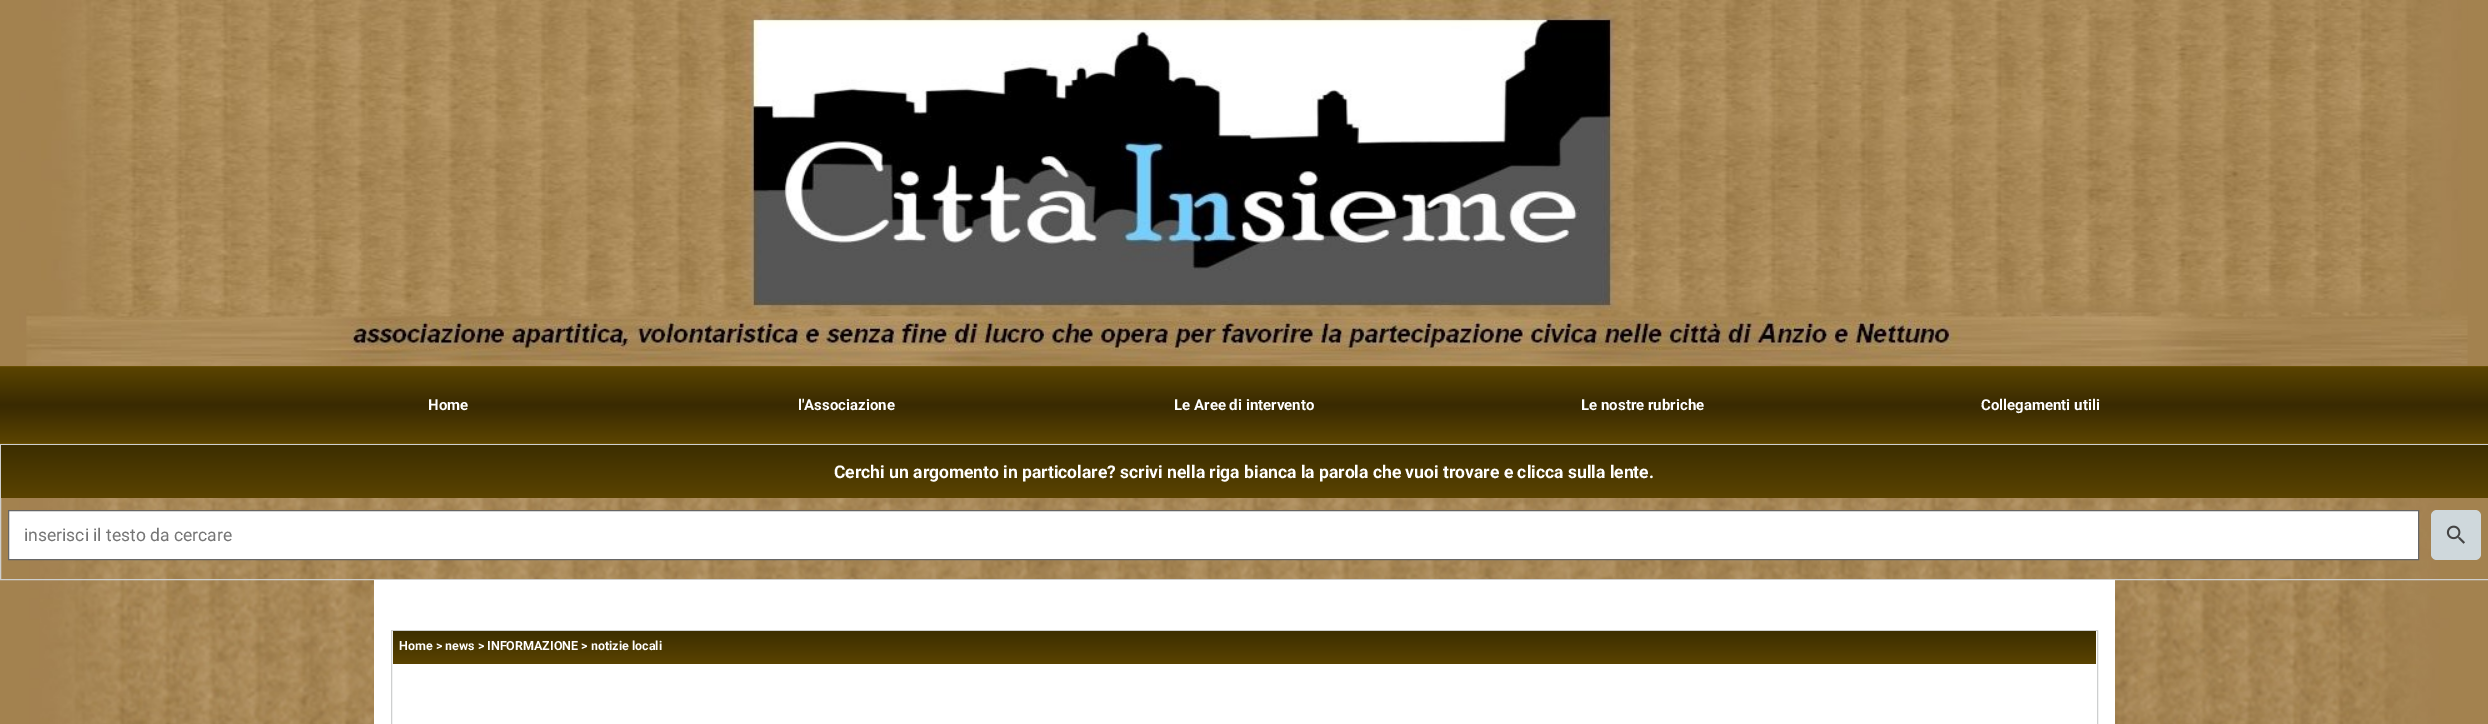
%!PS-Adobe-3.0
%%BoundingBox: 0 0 2488 724
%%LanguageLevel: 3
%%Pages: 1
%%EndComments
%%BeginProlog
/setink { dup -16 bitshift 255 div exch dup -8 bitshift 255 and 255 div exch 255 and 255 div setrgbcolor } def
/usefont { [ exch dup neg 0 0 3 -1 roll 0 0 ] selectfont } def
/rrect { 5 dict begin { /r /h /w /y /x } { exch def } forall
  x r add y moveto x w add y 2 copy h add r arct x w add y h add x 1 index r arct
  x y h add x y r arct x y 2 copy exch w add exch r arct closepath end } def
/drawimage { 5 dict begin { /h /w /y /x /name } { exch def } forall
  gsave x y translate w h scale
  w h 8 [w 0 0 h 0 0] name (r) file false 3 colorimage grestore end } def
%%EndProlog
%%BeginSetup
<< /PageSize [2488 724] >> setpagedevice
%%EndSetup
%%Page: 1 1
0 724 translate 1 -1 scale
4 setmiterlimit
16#FFFFFF setink
0 0 2488 724 rectfill
(img1.raw) 0 0 2488 724 drawimage
(img2.raw) 26 0 2442 366 drawimage
gsave 0 367 moveto 2488 367 lineto 2488 368 lineto 0 368 lineto closepath clip newpath
<< /ShadingType 2 /ColorSpace /DeviceRGB /Coords [1244 292 1244 368] /Extend [true true] /Function << /FunctionType 3 /Domain [0 1] /Functions [<< /FunctionType 2 /Domain [0 1] /C0 [0.357 0.267 0] /C1 [0.224 0.165 0.004] /N 1 >> << /FunctionType 2 /Domain [0 1] /C0 [0.224 0.165 0.004] /C1 [0.224 0.165 0.004] /N 1 >> << /FunctionType 2 /Domain [0 1] /C0 [0.224 0.165 0.004] /C1 [0.357 0.267 0] /N 1 >>] /Bounds [0.5 0.51] /Encode [0 1 0 1 0 1] >> >> shfill grestore
gsave 0 368 moveto 2488 368 lineto 2488 443 lineto 0 443 lineto closepath clip newpath
<< /ShadingType 2 /ColorSpace /DeviceRGB /Coords [1244 367 1244 443] /Extend [true true] /Function << /FunctionType 3 /Domain [0 1] /Functions [<< /FunctionType 2 /Domain [0 1] /C0 [0.357 0.267 0] /C1 [0.224 0.165 0.004] /N 1 >> << /FunctionType 2 /Domain [0 1] /C0 [0.224 0.165 0.004] /C1 [0.224 0.165 0.004] /N 1 >> << /FunctionType 2 /Domain [0 1] /C0 [0.224 0.165 0.004] /C1 [0.357 0.267 0] /N 1 >>] /Bounds [0.5 0.51] /Encode [0 1 0 1 0 1] >> >> shfill grestore
16#6A5004 setink
0 366 2488 1 rectfill
0 443 2488 1 rectfill
/Roboto-Bold 15 usefont
16#FFFFFF setink
[
    [(Home) 428 410]
    [(l'Associazione) 798 410]
    [(Le Aree di intervento) 1174 410]
    [(Le nostre rubriche) 1581 410]
    [(Collegamenti utili) 1981 410]
] { aload pop moveto show } forall
16#CECFCF setink
0.5 444.5 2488 135 rectstroke
gsave 1 445 moveto 2488 445 lineto 2488 498 lineto 1 498 lineto closepath clip newpath
<< /ShadingType 2 /ColorSpace /DeviceRGB /Coords [1244 498 1244 445] /Extend [true true] /Function << /FunctionType 2 /Domain [0 1] /C0 [0.353 0.263 0] /C1 [0.235 0.18 0.004] /N 1 >> >> shfill grestore
/Roboto-Bold 17.5 usefont
16#FFFFFF setink
834 478 moveto (Cerchi un argomento in particolare? scrivi nella riga bianca la parola che vuoi trovare e clicca sulla lente.) show
8.5 510.5 moveto 2418.5 510.5 lineto 2418.5 559.5 lineto 8.5 559.5 lineto closepath gsave fill grestore
16#666666 setink
stroke
/Roboto-Regular 17.5 usefont
16#757575 setink
24 541 moveto (inserisci il testo da cercare) show
16#CFD8DC setink
2431 510 50 50 6 rrect fill
(img3.raw) 2446 525 19 19 drawimage
16#FFFFFF setink
374 580 1741 144 rectfill
16#CECFCF setink
391.5 630.5 1706 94 rectstroke
gsave 393 631 moveto 2096 631 lineto 2096 664 lineto 393 664 lineto closepath clip newpath
<< /ShadingType 2 /ColorSpace /DeviceRGB /Coords [1244 664 1244 631] /Extend [true true] /Function << /FunctionType 2 /Domain [0 1] /C0 [0.353 0.263 0] /C1 [0.235 0.18 0.004] /N 1 >> >> shfill grestore
/Roboto-Bold 12.5 usefont
16#FFFFFF setink
399 650 moveto (Home > news > INFORMAZIONE > notizie locali) show
showpage
%%EOF
